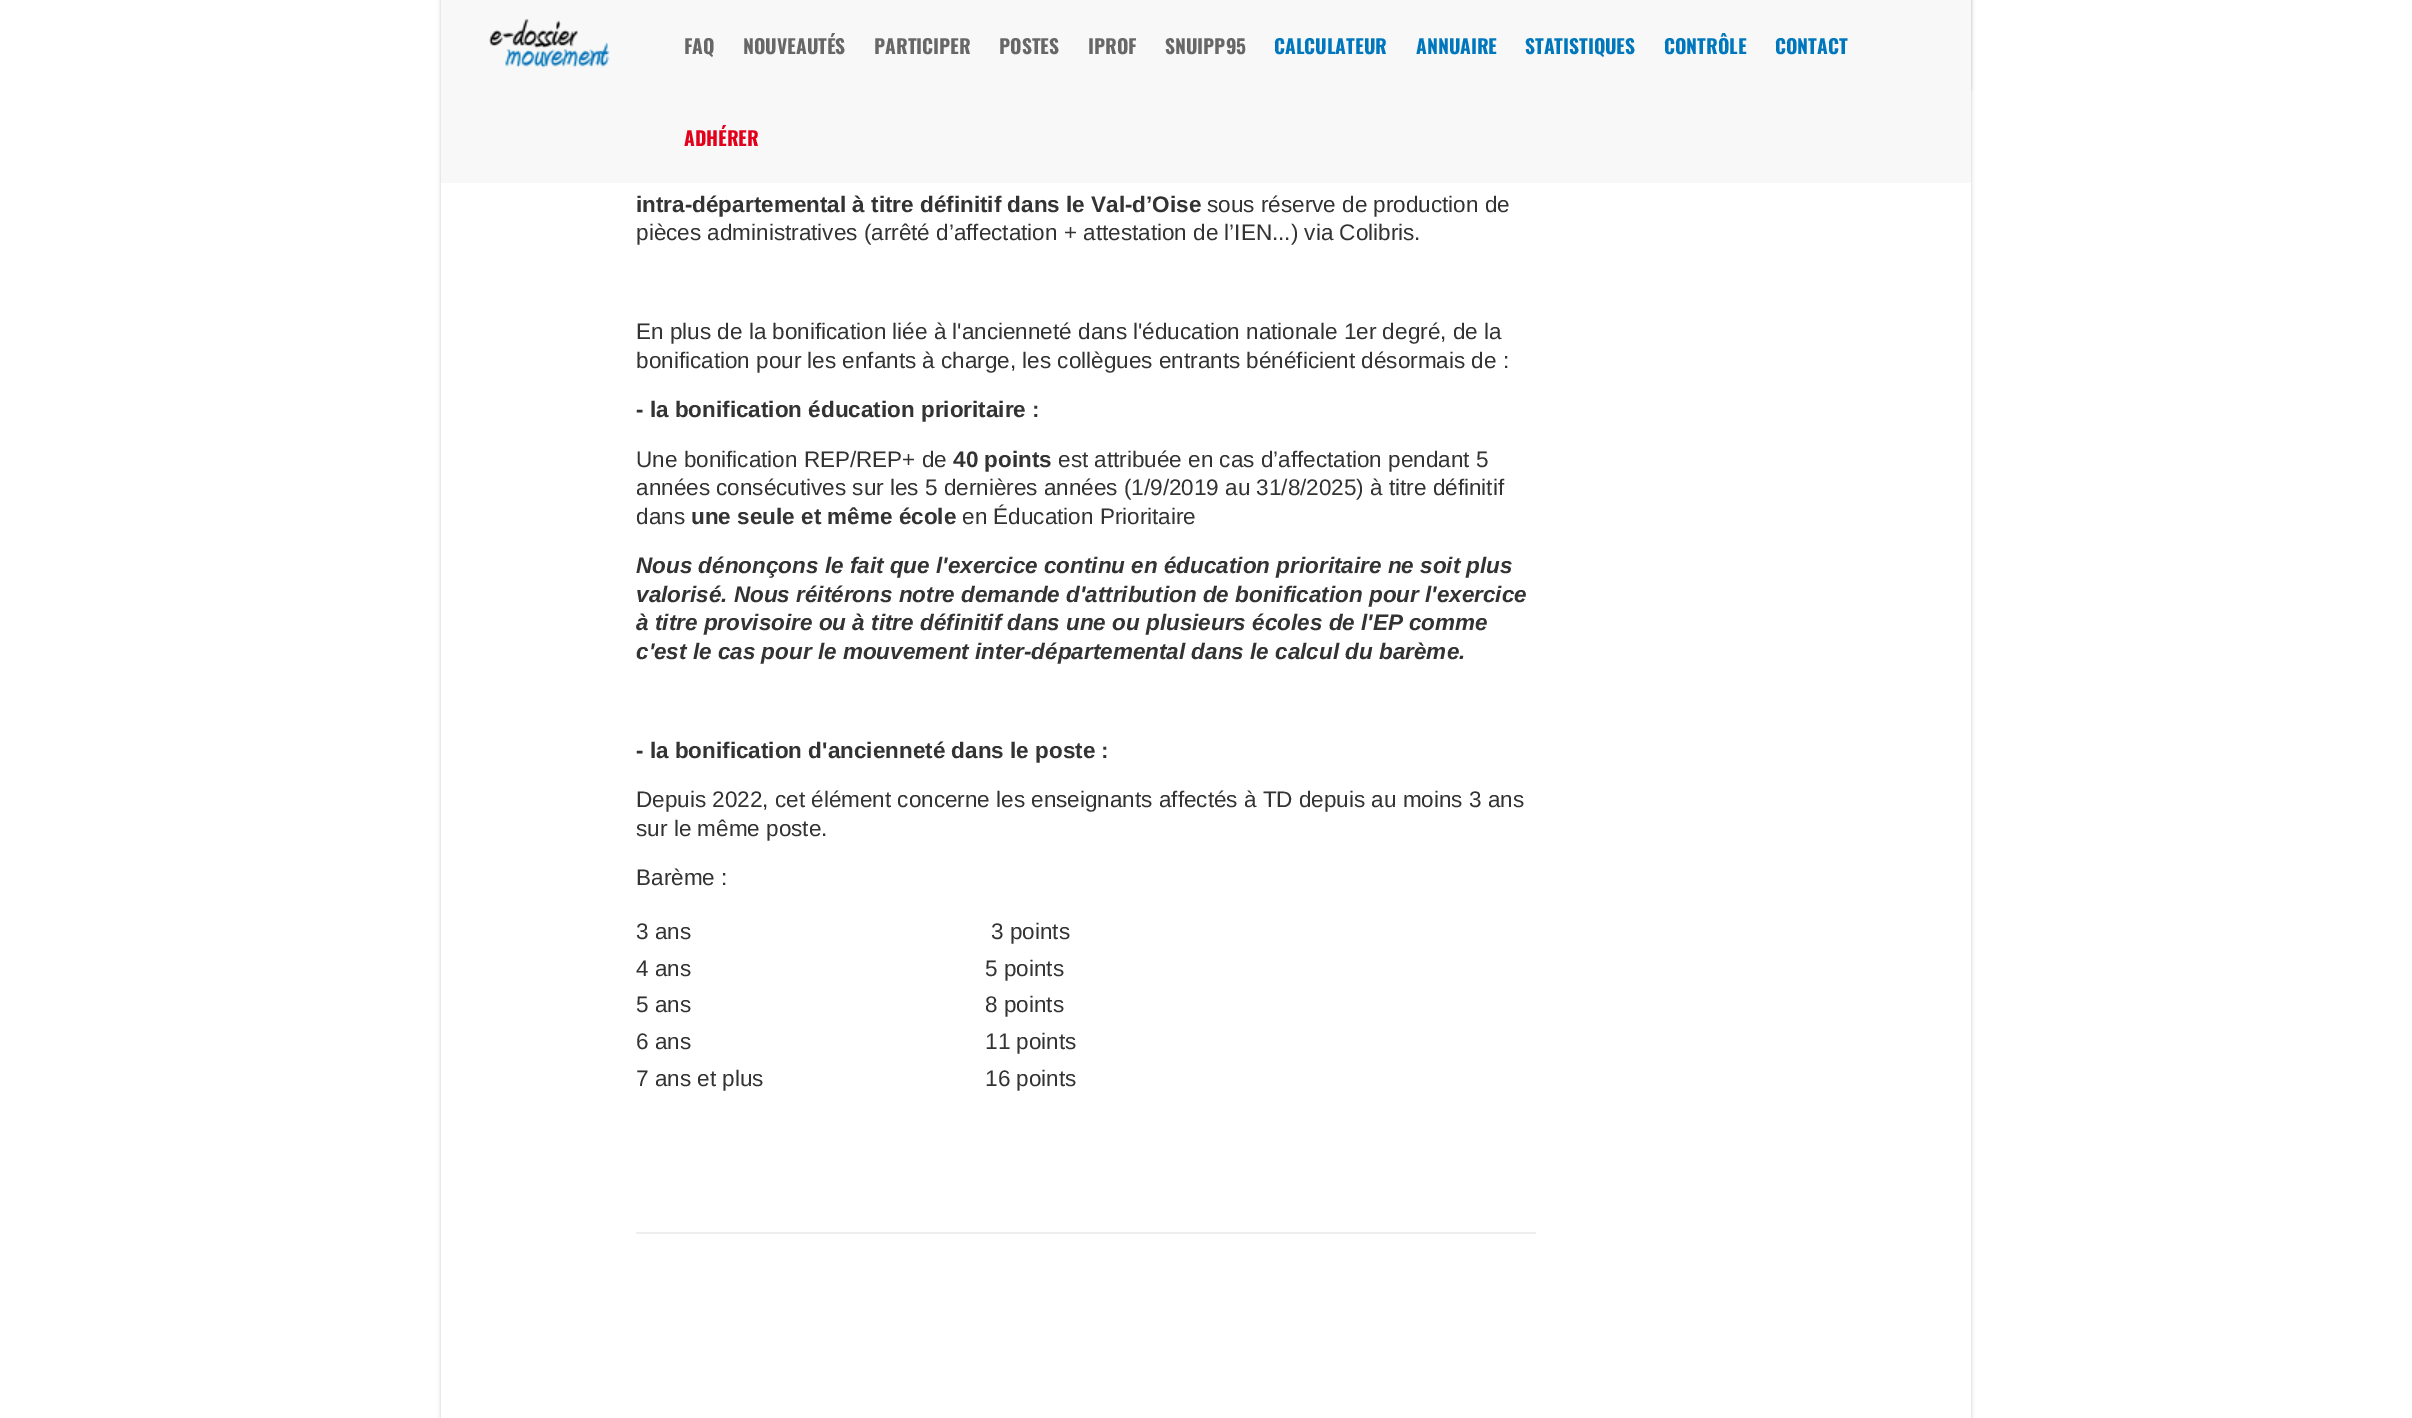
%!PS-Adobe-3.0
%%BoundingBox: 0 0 2412 1418
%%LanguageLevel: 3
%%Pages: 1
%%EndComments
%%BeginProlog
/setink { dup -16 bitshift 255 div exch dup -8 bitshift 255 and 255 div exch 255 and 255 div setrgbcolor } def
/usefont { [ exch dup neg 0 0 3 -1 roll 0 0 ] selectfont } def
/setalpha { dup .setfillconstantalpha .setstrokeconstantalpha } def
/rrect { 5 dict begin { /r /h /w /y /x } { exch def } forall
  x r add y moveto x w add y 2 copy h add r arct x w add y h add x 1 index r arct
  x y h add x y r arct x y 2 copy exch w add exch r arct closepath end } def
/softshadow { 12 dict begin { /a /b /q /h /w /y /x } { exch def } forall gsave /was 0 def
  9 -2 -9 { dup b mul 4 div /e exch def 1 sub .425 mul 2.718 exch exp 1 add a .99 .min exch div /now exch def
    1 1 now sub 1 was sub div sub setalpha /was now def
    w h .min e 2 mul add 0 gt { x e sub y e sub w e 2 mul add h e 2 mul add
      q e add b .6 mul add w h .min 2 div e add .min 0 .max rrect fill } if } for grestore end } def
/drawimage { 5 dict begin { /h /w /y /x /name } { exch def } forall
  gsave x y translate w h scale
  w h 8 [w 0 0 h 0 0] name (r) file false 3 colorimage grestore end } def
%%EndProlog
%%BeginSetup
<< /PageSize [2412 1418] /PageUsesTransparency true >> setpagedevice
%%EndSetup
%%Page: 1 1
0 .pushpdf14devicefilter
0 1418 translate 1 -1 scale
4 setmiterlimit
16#FFFFFF setink
0 0 2412 1418 rectfill
gsave
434 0 moveto 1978 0 lineto 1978 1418 lineto 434 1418 lineto closepath 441 -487 moveto 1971 -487 lineto 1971 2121 lineto 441 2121 lineto closepath eoclip newpath
16#000000 setink
441 -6 1530 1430 0 2 0.2 softshadow
grestore
16#000000 setink
486 0 1485 89 0 2 0.1 softshadow
16#F8F8F8 setink
441 0 1530 183 rectfill
(img1.raw) 488 18 122 50 drawimage
/Oswald-Bold 19.5 usefont
16#676767 setink
[
    [(FAQ) 684 54]
    [(NOUVEAUTÉS) 743 54]
    [(PARTICIPER) 874 54]
    [(POSTES) 999 54]
    [(IPROF) 1088 54]
    [(SNUIPP95) 1165 54]
] { aload pop moveto show } forall
16#0076BC setink
[
    [(CALCULATEUR) 1274 54]
    [(ANNUAIRE) 1416 54]
    [(STATISTIQUES) 1525 54]
    [(CONTRÔLE) 1664 54]
    [(CONTACT) 1775 54]
] { aload pop moveto show } forall
16#E3001B setink
684 146 moveto (ADHÉRER) show
/LiberationSans-Bold 22.5 usefont
16#333333 setink
636 212 moveto (intra-départemental à titre définitif dans le Val-d’Oise) show
/LiberationSans-Regular 22.5 usefont
[
    [(sous réserve de production de) 1207 212]
    [(pièces administratives \(arrêté d’affectation + attestation de l’IEN...\) via Colibris.) 636 240]
    [(En plus de la bonification liée à l'ancienneté dans l'éducation nationale 1er degré, de la) 636 339]
    [(bonification pour les enfants à charge, les collègues entrants bénéficient désormais de :) 636 368]
] { aload pop moveto show } forall
/LiberationSans-Bold 22.5 usefont
636 417 moveto (- la bonification éducation prioritaire :) show
/LiberationSans-Regular 22.5 usefont
636 467 moveto (Une bonification REP/REP+ de) show
/LiberationSans-Bold 22.5 usefont
953 467 moveto (40 points) show
/LiberationSans-Regular 22.5 usefont
[
    [(est attribuée en cas d’affectation pendant 5) 1058 467]
    [(années consécutives sur les 5 dernières années \(1/9/2019 au 31/8/2025\) à titre définitif) 636 495]
    [(dans) 636 524]
] { aload pop moveto show } forall
/LiberationSans-Bold 22.5 usefont
691 524 moveto (une seule et même école) show
/LiberationSans-Regular 22.5 usefont
962 524 moveto (en Éducation Prioritaire) show
/LiberationSans-BoldItalic 22.5 usefont
[
    [(Nous dénonçons le fait que l'exercice continu en éducation prioritaire ne soit plus) 636 573]
    [(valorisé. Nous réitérons notre demande d'attribution de bonification pour l'exercice) 636 602]
    [(à titre provisoire ou à titre définitif dans une ou plusieurs écoles de l'EP comme) 636 630]
    [(c'est le cas pour le mouvement inter-départemental dans le calcul du barème.) 636 659]
] { aload pop moveto show } forall
/LiberationSans-Bold 22.5 usefont
636 758 moveto (- la bonification d'ancienneté dans le poste :) show
/LiberationSans-Regular 22.5 usefont
[
    [(Depuis 2022, cet élément concerne les enseignants affectés à TD depuis au moins 3 ans) 636 807]
    [(sur le même poste.) 636 836]
    [(Barème :) 636 885]
    [(3 ans) 636 939]
    [(3 points) 991 939]
    [(4 ans) 636 976]
    [(5 points) 985 976]
    [(5 ans) 636 1012]
    [(8 points) 985 1012]
    [(6 ans) 636 1049]
    [(11 points) 985 1049]
    [(7 ans et plus) 636 1086]
    [(16 points) 985 1086]
] { aload pop moveto show } forall
16#EEEEEE setink
636 1232 900 2 rectfill
.poppdf14devicefilter showpage
%%EOF
